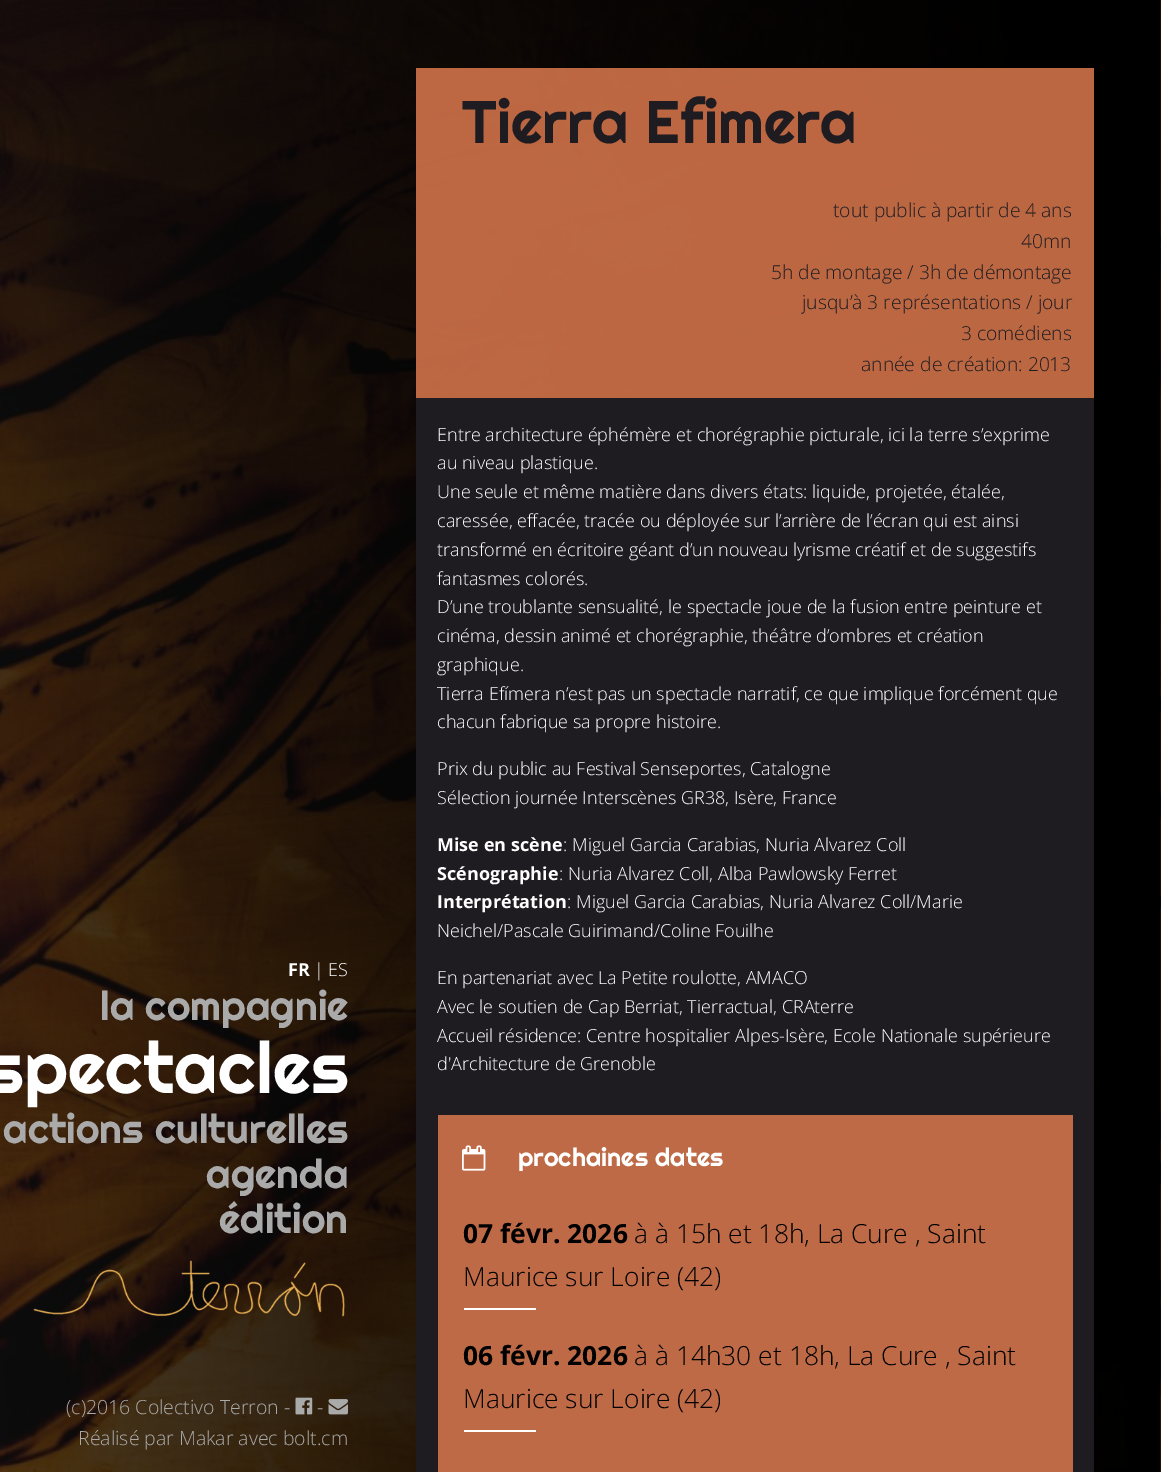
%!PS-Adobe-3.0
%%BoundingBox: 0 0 1161 1472
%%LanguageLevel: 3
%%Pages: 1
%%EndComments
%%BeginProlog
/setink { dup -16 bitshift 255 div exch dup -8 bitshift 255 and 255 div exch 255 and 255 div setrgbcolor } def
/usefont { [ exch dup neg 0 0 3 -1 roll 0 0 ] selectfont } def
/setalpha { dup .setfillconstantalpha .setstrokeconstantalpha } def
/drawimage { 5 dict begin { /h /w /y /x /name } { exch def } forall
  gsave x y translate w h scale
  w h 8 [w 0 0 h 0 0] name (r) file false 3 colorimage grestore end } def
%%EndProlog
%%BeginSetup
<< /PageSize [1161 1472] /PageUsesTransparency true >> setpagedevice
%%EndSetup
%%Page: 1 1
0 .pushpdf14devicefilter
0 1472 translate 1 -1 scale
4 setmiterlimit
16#FFFFFF setink
0 0 1161 1472 rectfill
(img1.raw) 0 0 1161 1472 drawimage
(img2.raw) 0 0 1161 1472 drawimage
/OpenSans-Bold 18 usefont
288 976 moveto (FR) show
/OpenSans-Light 18 usefont
314 976 moveto (| ES) show
/Righteous-Regular 40.5 usefont
16#AAAAAA setink
100 1020 moveto (la compagnie) show
/Righteous-Regular 72 usefont
16#FFFFFF setink
-14 1093 moveto (spectacles) show
/Righteous-Regular 40.5 usefont
16#AAAAAA setink
[
    [(actions culturelles) 3 1143]
    [(agenda) 206 1188]
    [(édition) 219 1233]
] { aload pop moveto show } forall
(img3.raw) 33 1260 312 57 drawimage
/OpenSans-Light 19.5 usefont
66 1414 moveto (\(c\)2016 Colectivo Terron -) show
(img4.raw) 295 1397 18 18 drawimage
317 1414 moveto (-) show
(img5.raw) 328 1399 20 16 drawimage
78 1445 moveto (Réalisé par Makar avec bolt.cm) show
0.88 setalpha
16#D5754B setink
416 68 678 330 rectfill
/Righteous-Regular 60 usefont
1 setalpha
16#1E1B21 setink
462 143 moveto (Tierra Efimera) show
/OpenSans-Light 19.25 usefont
[
    [(tout public à partir de 4 ans) 833 217]
    [(40mn) 1021 248]
    [(5h de montage / 3h de démontage) 771 279]
    [(jusqu’à 3 représentations / jour) 802 309]
    [(3 comédiens) 961 340]
    [(année de création: 2013) 861 371]
] { aload pop moveto show } forall
416 398 678 1074 rectfill
/OpenSans-Light 18 usefont
16#FFFFFF setink
[
    [(Entre architecture éphémère et chorégraphie picturale, ici la terre s’exprime) 437 441]
    [(au niveau plastique.) 437 469]
    [(Une seule et même matière dans divers états: liquide, projetée, étalée,) 437 498]
    [(caressée, effacée, tracée ou déployée sur l’arrière de l’écran qui est ainsi) 437 527]
    [(transformé en écritoire géant d’un nouveau lyrisme créatif et de suggestifs) 437 556]
    [(fantasmes colorés.) 437 585]
    [(D’une troublante sensualité, le spectacle joue de la fusion entre peinture et) 437 613]
    [(cinéma, dessin animé et chorégraphie, théâtre d’ombres et création) 437 642]
    [(graphique.) 437 671]
    [(Tierra Efímera n’est pas un spectacle narratif, ce que implique forcément que) 437 700]
    [(chacun fabrique sa propre histoire.) 437 728]
    [(Prix du public au Festival Senseportes, Catalogne) 437 775]
    [(Sélection journée Interscènes GR38, Isère, France) 437 804]
] { aload pop moveto show } forall
/OpenSans-Bold 18 usefont
437 851 moveto (Mise en scène) show
/OpenSans-Light 18 usefont
563 851 moveto (: Miguel Garcia Carabias, Nuria Alvarez Coll) show
/OpenSans-Bold 18 usefont
437 880 moveto (Scénographie) show
/OpenSans-Light 18 usefont
559 880 moveto (: Nuria Alvarez Coll, Alba Pawlowsky Ferret) show
/OpenSans-Bold 18 usefont
437 908 moveto (Interprétation) show
/OpenSans-Light 18 usefont
[
    [(: Miguel Garcia Carabias, Nuria Alvarez Coll/Marie) 567 908]
    [(Neichel/Pascale Guirimand/Coline Fouilhe) 437 937]
    [(En partenariat avec La Petite roulotte, AMACO) 437 984]
    [(Avec le soutien de Cap Berriat, Tierractual, CRAterre) 437 1013]
    [(Accueil résidence: Centre hospitalier Alpes-Isère, Ecole Nationale supérieure) 437 1042]
    [(d'Architecture de Grenoble) 437 1070]
] { aload pop moveto show } forall
16#BF6A46 setink
438 1115 635 357 rectfill
(img6.raw) 462 1145 24 26 drawimage
/Righteous-Regular 25.25 usefont
16#FFFFFF setink
518 1166 moveto (prochaines dates) show
/OpenSans-Bold 26.4 usefont
16#000000 setink
463 1243 moveto (07 févr. 2026) show
/OpenSans-Light 26.4 usefont
634 1243 moveto (à à 15h et 18h, La Cure , Saint) show
463 1286 moveto (Maurice sur Loire \(42\)) show
16#FFFFFF setink
464 1308 72 2 rectfill
/OpenSans-Bold 26.4 usefont
16#000000 setink
463 1365 moveto (06 févr. 2026) show
/OpenSans-Light 26.4 usefont
634 1365 moveto (à à 14h30 et 18h, La Cure , Saint) show
463 1408 moveto (Maurice sur Loire \(42\)) show
16#FFFFFF setink
464 1430 72 2 rectfill
.poppdf14devicefilter showpage
%%EOF
